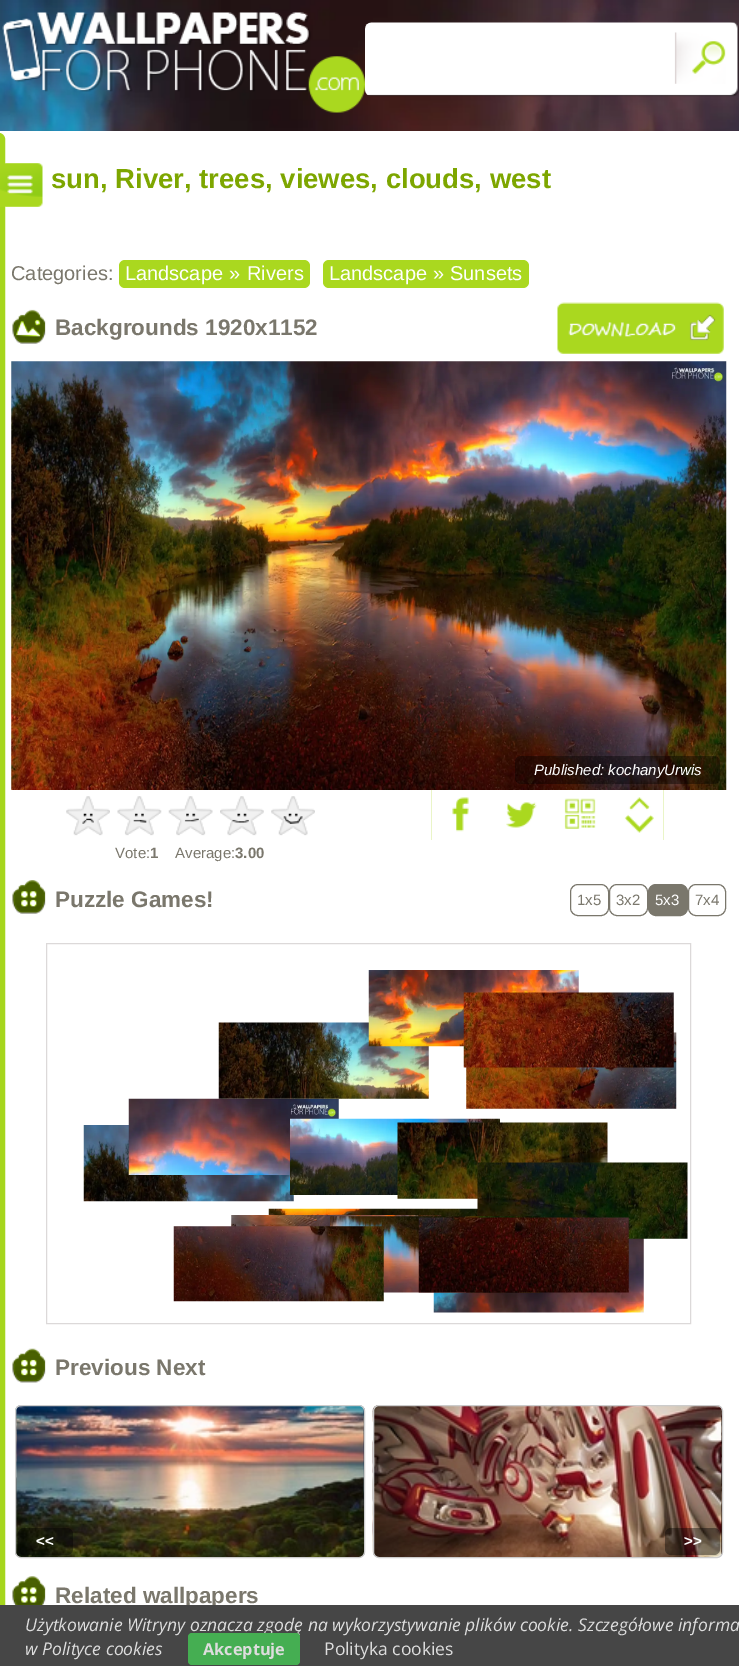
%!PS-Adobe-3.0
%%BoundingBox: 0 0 739 1666
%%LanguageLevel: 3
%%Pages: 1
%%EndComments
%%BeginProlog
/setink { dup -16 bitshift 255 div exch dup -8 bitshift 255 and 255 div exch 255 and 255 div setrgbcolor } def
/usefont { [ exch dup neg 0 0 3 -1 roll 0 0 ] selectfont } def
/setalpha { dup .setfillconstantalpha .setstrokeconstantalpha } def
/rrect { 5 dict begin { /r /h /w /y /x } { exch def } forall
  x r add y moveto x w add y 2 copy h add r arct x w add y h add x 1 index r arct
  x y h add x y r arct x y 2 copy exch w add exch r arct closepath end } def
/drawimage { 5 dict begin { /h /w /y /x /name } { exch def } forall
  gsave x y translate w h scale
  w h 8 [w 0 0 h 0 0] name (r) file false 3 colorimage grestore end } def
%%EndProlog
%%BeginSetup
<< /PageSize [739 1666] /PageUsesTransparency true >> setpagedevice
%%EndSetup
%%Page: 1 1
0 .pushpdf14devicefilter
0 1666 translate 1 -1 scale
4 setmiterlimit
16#FFFFFF setink
0 0 739 1666 rectfill
(img1.raw) 0 0 739 131 drawimage
(img2.raw) 0 0 739 34 drawimage
(img3.raw) 2 12 363 101 drawimage
(img4.raw) 365 22 374 75 drawimage
16#A6D61D setink
6 setlinewidth
-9 136 moveto -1 136 lineto 0.5 136 2 137.5 2 139 curveto 2 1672 lineto 2 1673.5 0.5 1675 -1 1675 curveto -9 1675 lineto closepath stroke
(img5.raw) 0 163 43 44 drawimage
/LiberationSans-Bold 27.5 usefont
16#7DA600 setink
51 188 moveto (sun, River, trees, viewes, clouds, west) show
/LiberationSans-Regular 20 usefont
16#7A776C setink
11 280 moveto (Categories:) show
16#AAD81F setink
119 260 191 28 6 rrect fill
16#FFFFFF setink
[
    [(Landscape) 125 280]
    [(») 229 280]
    [(Rivers) 247 280]
] { aload pop moveto show } forall
16#AAD81F setink
323 260 206 28 6 rrect fill
16#FFFFFF setink
[
    [(Landscape) 329 280]
    [(») 433 280]
    [(Sunsets) 450 280]
] { aload pop moveto show } forall
(img6.raw) 12 309 34 35 drawimage
/LiberationSans-Bold 22.5 usefont
16#7A776C setink
55 335 moveto (Backgrounds 1920x1152) show
(img7.raw) 557 302 167 52 drawimage
(img8.raw) 11 361 716 429 drawimage
0.4 setalpha
16#000000 setink
515 756 205 28 6 rrect fill
/LiberationSans-Italic 15 usefont
1 setalpha
16#FFFFFF setink
534 775 moveto (Published: kochanyUrwis) show
16#AAD81F setink
431 790 38 50 rectfill
(img9.raw) 431 790 55 50 drawimage
506 802 31 26 rectfill
(img10.raw) 490 790 55 50 drawimage
564 798 32 31 rectfill
(img11.raw) 550 790 55 50 drawimage
624 790 40 50 rectfill
(img12.raw) 609 790 55 50 drawimage
(img13.raw) 66 796 44 40 drawimage
(img14.raw) 117 796 45 40 drawimage
(img15.raw) 168 796 45 40 drawimage
(img16.raw) 220 796 44 40 drawimage
(img17.raw) 271 796 44 40 drawimage
/LiberationSans-Regular 15 usefont
16#7A776C setink
115 858 moveto (Vote:) show
/LiberationSans-Bold 15 usefont
150 858 moveto (1) show
/LiberationSans-Regular 15 usefont
175 858 moveto (Average:) show
/LiberationSans-Bold 15 usefont
235 858 moveto (3.00) show
(img18.raw) 12 880 34 34 drawimage
/LiberationSans-Bold 22.5 usefont
55 907 moveto (Puzzle Games!) show
1 setlinewidth
570.5 884.5 38 31 7.5 rrect stroke
/LiberationSans-Regular 15 usefont
577 905 moveto (1x5) show
609.5 884.5 38 31 7.5 rrect stroke
616 905 moveto (3x2) show
648.5 884.5 39 31 7.5 rrect gsave fill grestore
stroke
16#FFFFFF setink
655 905 moveto (5x3) show
16#7A776C setink
688.5 884.5 37 31 7.5 rrect stroke
695 905 moveto (7x4) show
16#DCD9D9 setink
46.5 943.5 644 380 rectstroke
(img26.raw) 83 1125 211 77 drawimage
(img23.raw) 128 1098 211 77 drawimage
(img20.raw) 218 1022 211 77 drawimage
(img19.raw) 368 970 211 77 drawimage
(img22.raw) 466 1032 211 77 drawimage
(img21.raw) 463 992 211 76 drawimage
(img24.raw) 290 1118 210 77 drawimage
(img25.raw) 397 1122 211 77 drawimage
(img27.raw) 268 1208 210 9 drawimage
(img33.raw) 433 1238 211 75 drawimage
(img28.raw) 477 1162 211 77 drawimage
(img29.raw) 231 1215 211 12 drawimage
(img30.raw) 330 1216 210 77 drawimage
(img31.raw) 173 1226 211 76 drawimage
(img32.raw) 418 1217 211 76 drawimage
(img34.raw) 12 1348 34 35 drawimage
/LiberationSans-Bold 22.5 usefont
16#7A776C setink
55 1375 moveto (Previous Next) show
(img35.raw) 15 1405 350 153 drawimage
16#CCCCCC setink
15.5 1405.5 349 152 5.5 rrect stroke
0.4 setalpha
16#000000 setink
18 1528 55 27 6 rrect fill
/LiberationSans-Bold 15 usefont
1 setalpha
16#FFFFFF setink
36 1546 moveto (<<) show
(img36.raw) 372 1405 351 153 drawimage
16#CCCCCC setink
373.5 1405.5 349 152 5.5 rrect stroke
0.4 setalpha
16#000000 setink
665 1528 55 27 6 rrect fill
1 setalpha
16#FFFFFF setink
684 1546 moveto (>>) show
(img37.raw) 12 1576 34 29 drawimage
/LiberationSans-Bold 22.5 usefont
16#7A776C setink
55 1603 moveto (Related wallpapers) show
16#464646 setink
0 1605 739 61 rectfill
/OpenSans-Italic 17.5 usefont
16#DDDDDD setink
25 1631 moveto (Użytkowanie Witryny oznacza zgodę na wykorzystywanie plików cookie. Szczegółowe informa) show
25 1655 moveto (w Polityce cookies) show
16#45AE52 setink
188 1633 112 32 4 rrect fill
/OpenSans-Bold 16.25 usefont
16#DDDDDD setink
203 1655 moveto (Akceptuje) show
/OpenSans-Regular 17.5 usefont
324 1655 moveto (Polityka cookies) show
.poppdf14devicefilter showpage
%%EOF
